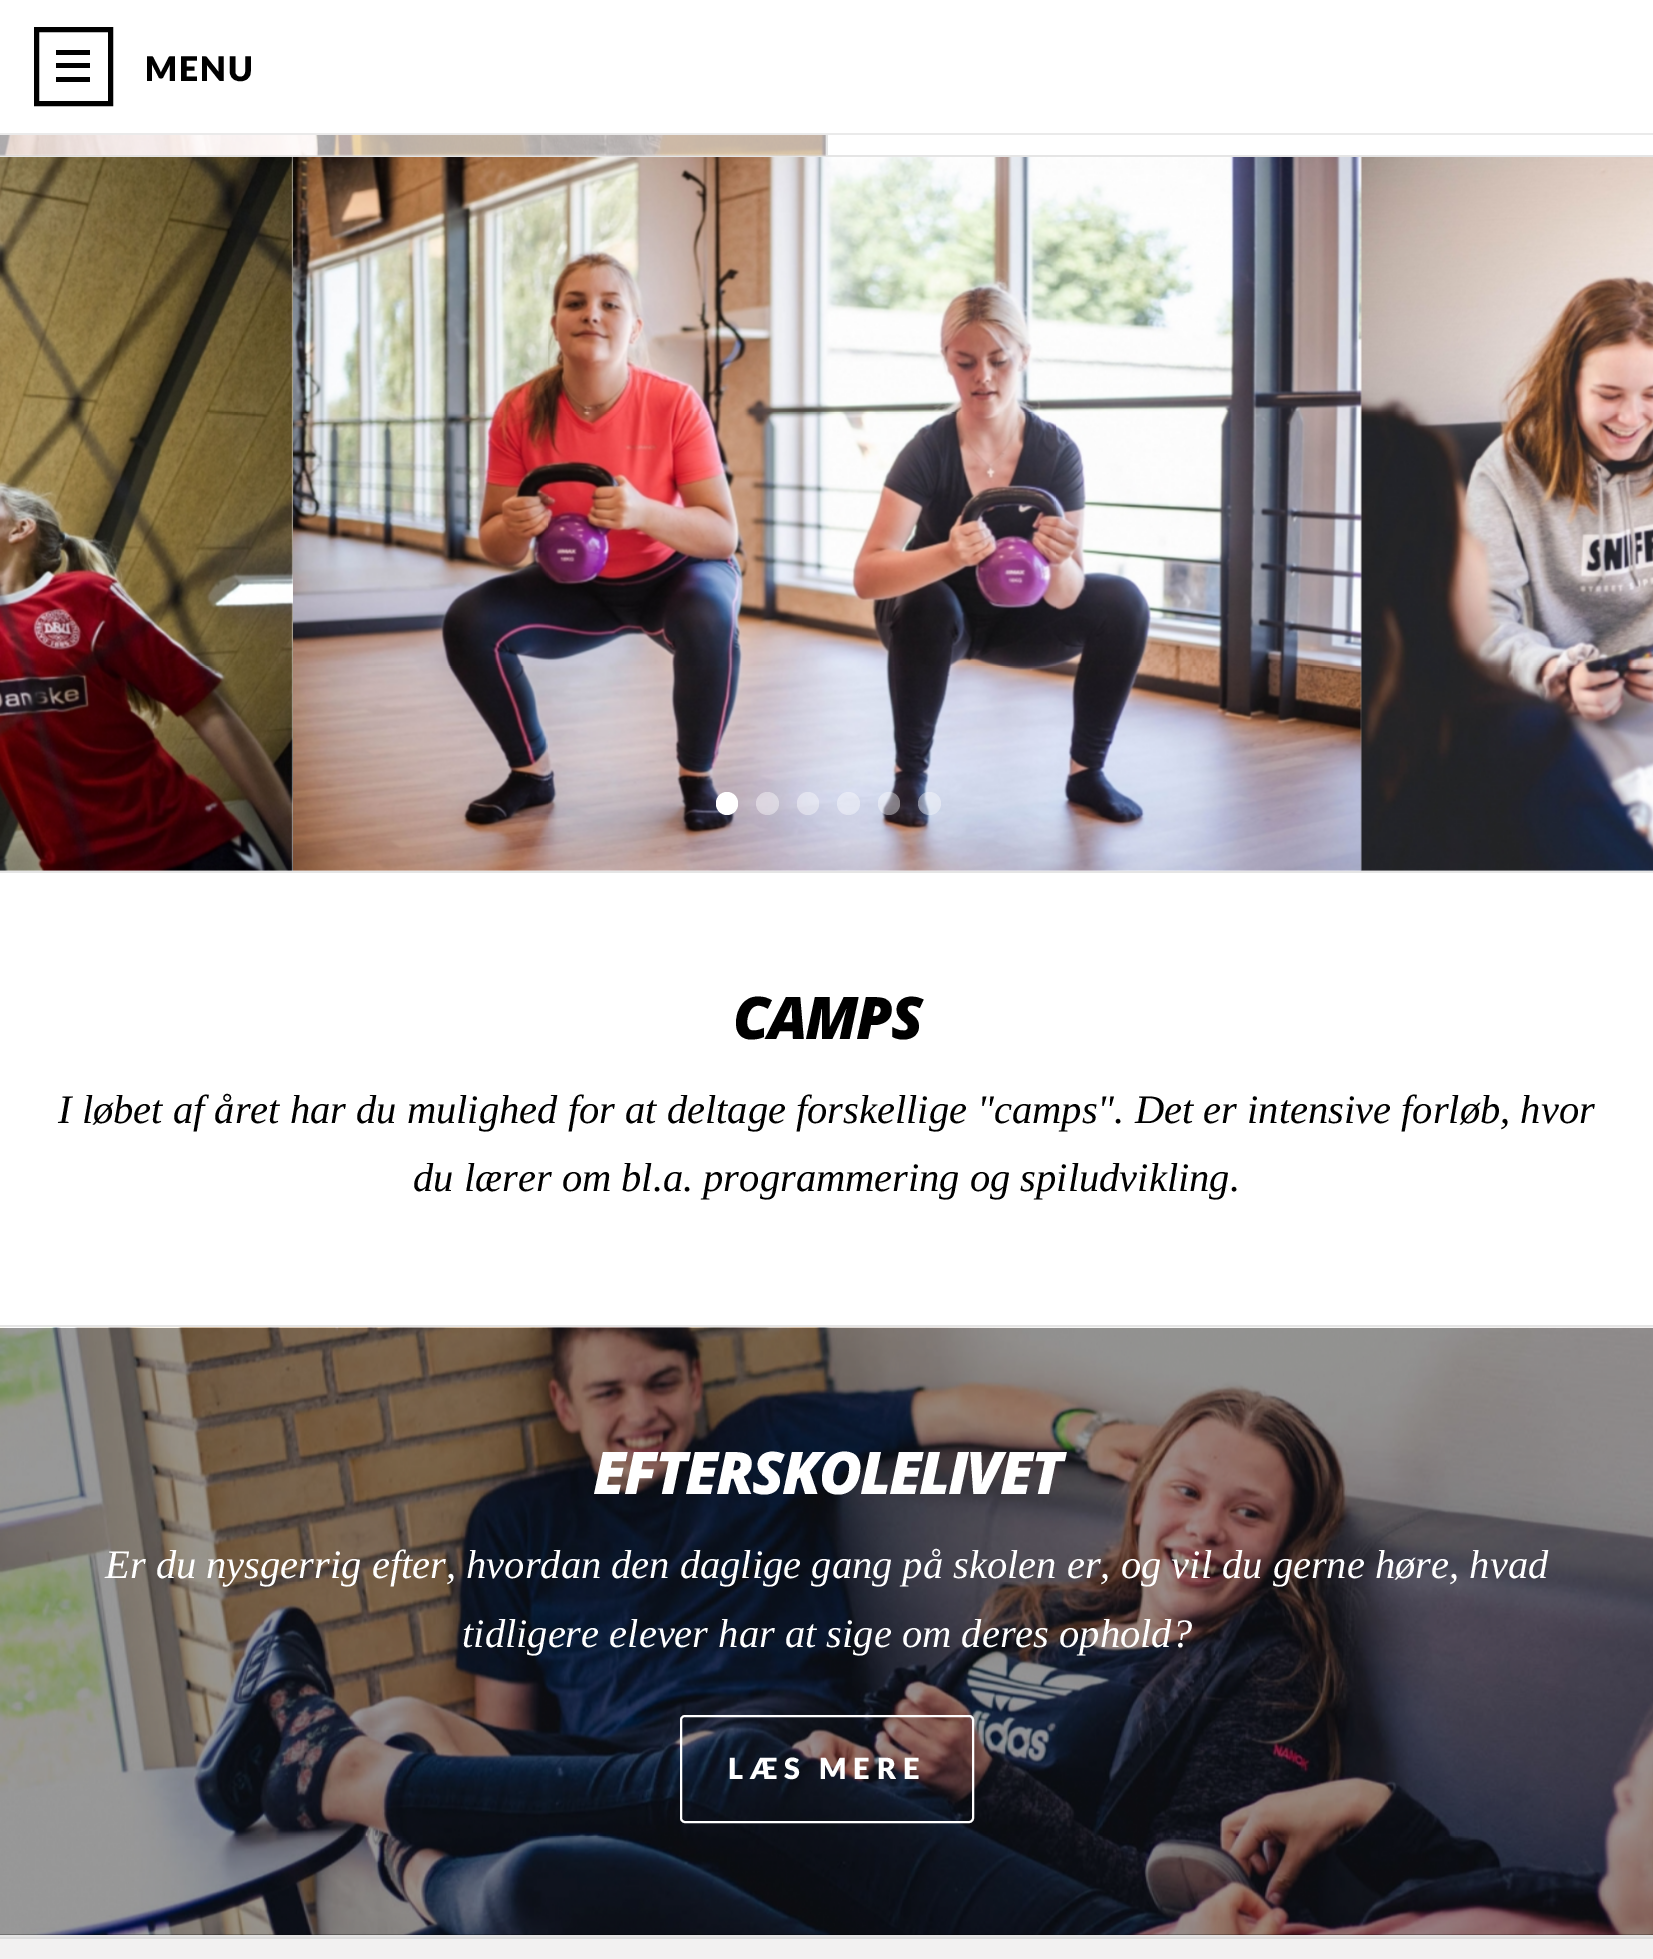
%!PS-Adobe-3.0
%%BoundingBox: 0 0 1653 1959
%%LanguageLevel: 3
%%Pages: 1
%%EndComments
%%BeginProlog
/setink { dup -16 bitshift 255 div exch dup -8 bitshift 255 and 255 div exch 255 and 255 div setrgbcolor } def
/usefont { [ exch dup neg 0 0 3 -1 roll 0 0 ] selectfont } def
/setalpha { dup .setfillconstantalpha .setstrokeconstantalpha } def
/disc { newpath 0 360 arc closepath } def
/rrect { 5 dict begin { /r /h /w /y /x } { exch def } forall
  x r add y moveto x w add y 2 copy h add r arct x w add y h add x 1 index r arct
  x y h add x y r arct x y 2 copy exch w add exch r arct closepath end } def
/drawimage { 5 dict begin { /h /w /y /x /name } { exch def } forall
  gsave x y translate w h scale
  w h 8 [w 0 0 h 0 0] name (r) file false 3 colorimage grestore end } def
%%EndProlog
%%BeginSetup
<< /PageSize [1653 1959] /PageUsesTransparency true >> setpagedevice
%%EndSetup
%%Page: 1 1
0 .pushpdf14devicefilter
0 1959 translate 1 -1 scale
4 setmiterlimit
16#FFFFFF setink
0 0 1653 1959 rectfill
16#EAEAEA setink
0 133 1653 2 rectfill
16#000000 setink
5 setlinewidth
36.5 29.5 74 74 rectstroke
[
    [56 63 34 5 16#000000]
    [56 50 34 5 16#000000]
    [56 77 34 5 16#000000]
] { aload pop setink rectfill } forall
/Lato-Black 34 usefont
145 81 moveto 2 0 (MENU) ashow
16#E5E5E5 setink
0 155 1653 2 rectfill
826 135 2 20 rectfill
(img1.raw) 0 135 826 21 drawimage
0 871 1653 2 rectfill
(img2.raw) 0 157 293 714 drawimage
(img3.raw) 293 157 1069 714 drawimage
(img4.raw) 1360 157 293 714 drawimage
16#FFFFFF setink
716 792 22 23 11 rrect fill
0.4 setalpha
767.5 803.5 11.5 disc fill
797 792 22 23 11 rrect fill
848.5 803.5 11.5 disc fill
878 792 22 23 11 rrect fill
929.5 803.5 11.5 disc fill
1 setalpha
16#E5E5E5 setink
0 1325 1653 2 rectfill
/OpenSans-ExtraBoldItalic 58.75 usefont
16#000000 setink
733 1039 moveto -2.25 0 (CAMPS) ashow
/LiberationSerif-Italic 40.5 usefont
58 1123 moveto (I løbet af året har du mulighed for at deltage forskellige "camps". Det er intensive forløb, hvor) show
413 1191 moveto (du lærer om bl.a. programmering og spiludvikling.) show
16#E5E5E5 setink
0 1935 1653 2 rectfill
16#000000 setink
0 1328 1653 607 rectfill
(img5.raw) 0 1327 1653 608 drawimage
/OpenSans-ExtraBoldItalic 58.75 usefont
16#FFFFFF setink
593 1494 moveto -2.25 0 (EFTERSKOLELIVET) ashow
/LiberationSerif-Italic 40.5 usefont
105 1578 moveto (Er du nysgerrig efter, hvordan den daglige gang på skolen er, og vil du gerne høre, hvad) show
462 1647 moveto (tidligere elever har at sige om deres ophold?) show
2 setlinewidth
681 1716 292 106 4 rrect stroke
/Lato-Black 29.25 usefont
728 1779 moveto 6.75 0 (LÆS MERE) ashow
16#F2F1F1 setink
0 1939 1653 20 rectfill
16#DDDDDD setink
0 1937 1653 2 rectfill
.poppdf14devicefilter showpage
%%EOF
